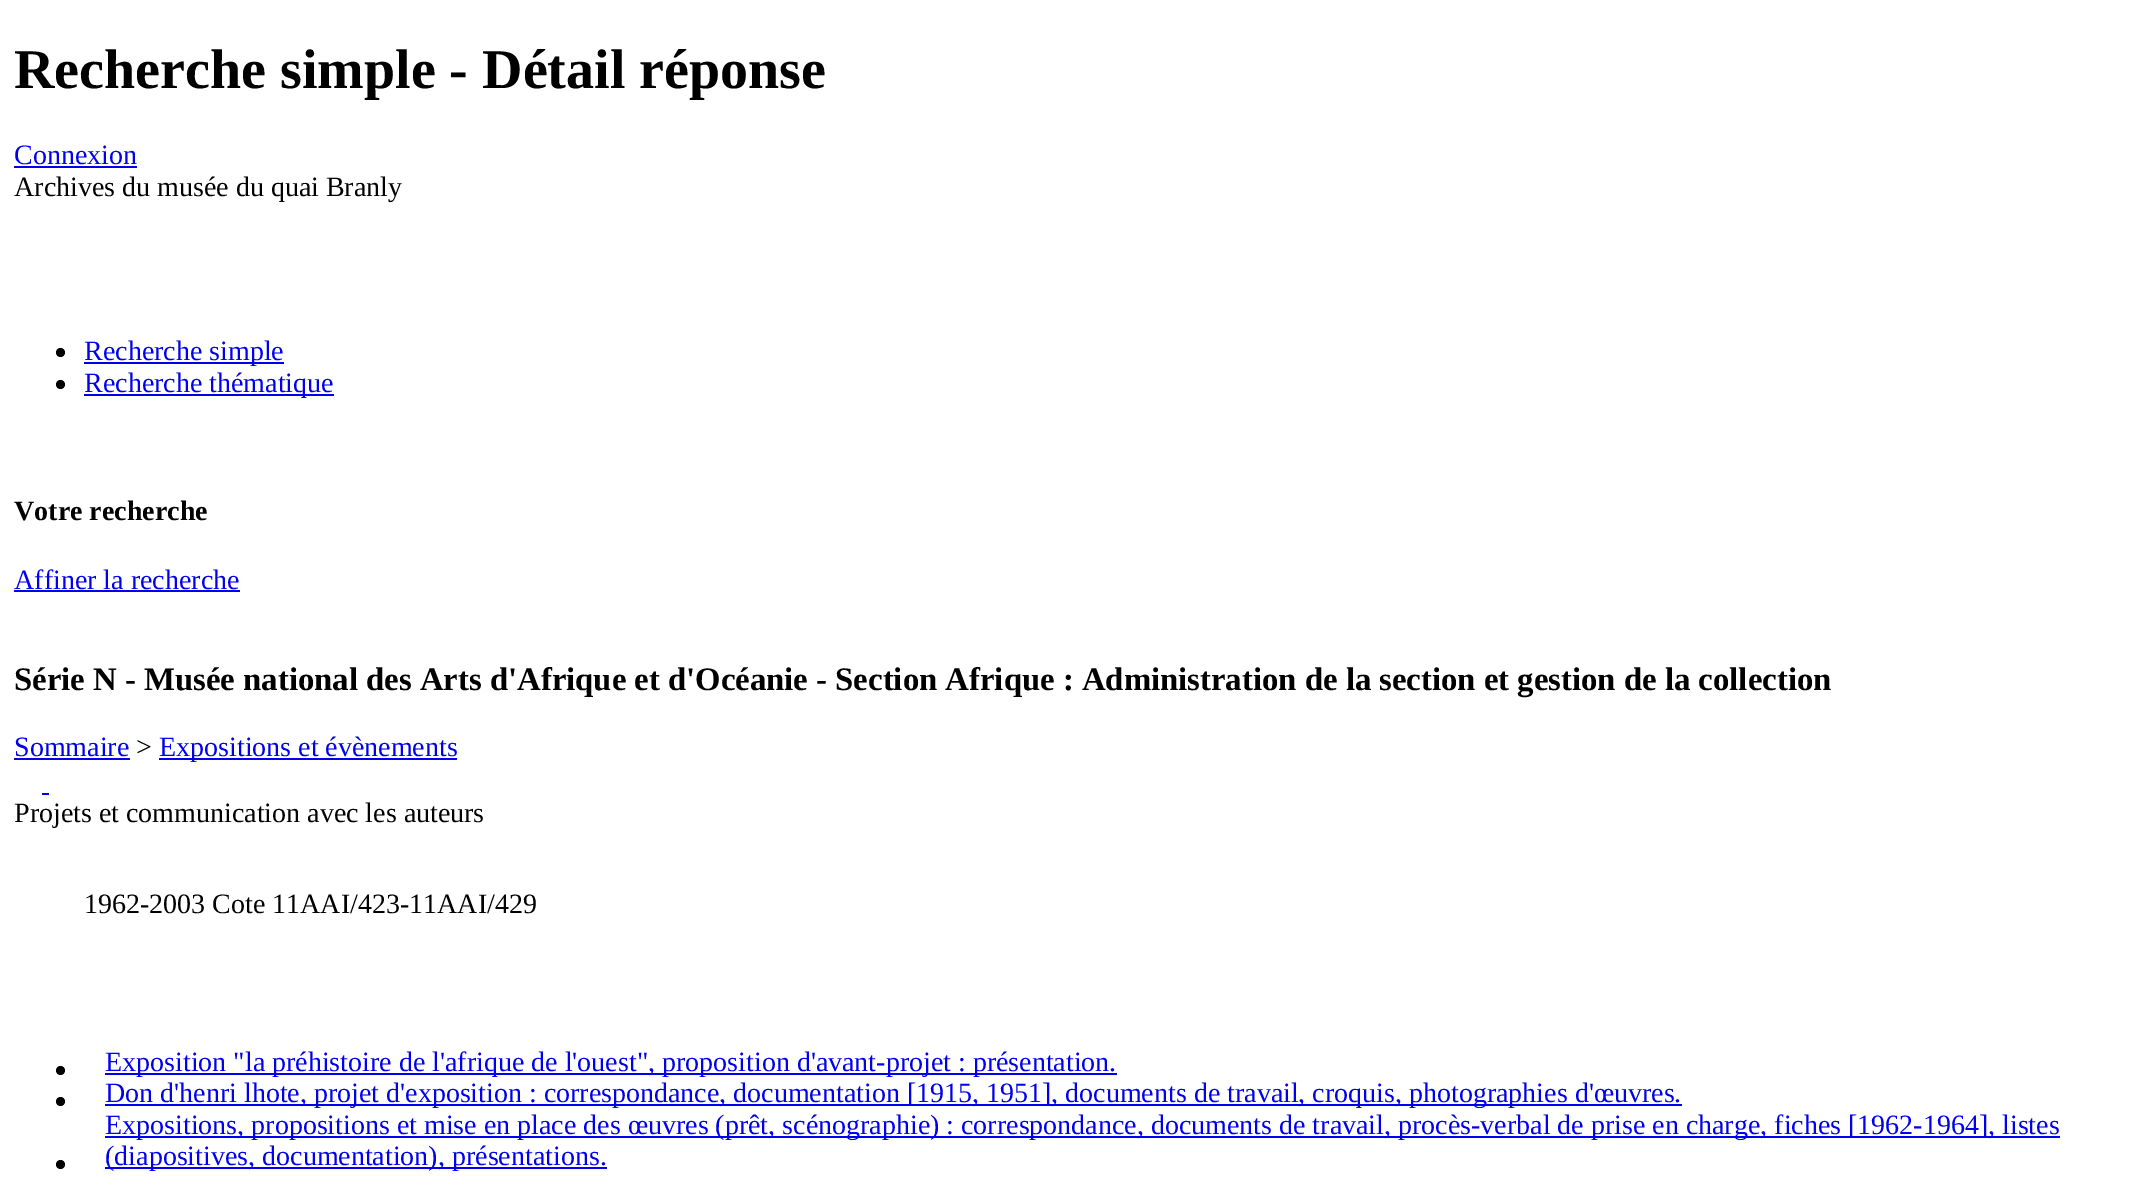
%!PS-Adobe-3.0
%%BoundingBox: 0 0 2133 1183
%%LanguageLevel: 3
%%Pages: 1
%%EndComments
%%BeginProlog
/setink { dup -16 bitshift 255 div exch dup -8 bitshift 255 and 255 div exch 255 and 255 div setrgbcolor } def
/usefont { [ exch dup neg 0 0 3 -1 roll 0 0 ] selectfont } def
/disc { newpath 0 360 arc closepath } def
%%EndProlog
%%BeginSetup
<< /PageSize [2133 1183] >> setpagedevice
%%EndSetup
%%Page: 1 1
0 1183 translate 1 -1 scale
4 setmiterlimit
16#FFFFFF setink
0 0 2133 1183 rectfill
/LiberationSerif-Bold 56 usefont
16#000000 setink
14 88 moveto (Recherche simple - Détail réponse) show
/LiberationSerif-Regular 28 usefont
16#0000EE setink
14 164 moveto (Connexion) show
14 166 123 2 rectfill
16#000000 setink
14 196 moveto (Archives du musée du quai Branly) show
60.5 352.5 4.5 disc fill
16#0000EE setink
84 362 200 2 rectfill
84 360 moveto (Recherche simple) show
16#000000 setink
60.5 384.5 4.5 disc fill
16#0000EE setink
84 394 250 2 rectfill
84 392 moveto (Recherche thématique) show
/LiberationSerif-Bold 28 usefont
16#000000 setink
14 520 moveto (Votre recherche) show
/LiberationSerif-Regular 28 usefont
16#0000EE setink
14 589 moveto (Affiner la recherche) show
14 590 226 2 rectfill
/LiberationSerif-Bold 32.75 usefont
16#000000 setink
14 690 moveto (Série N - Musée national des Arts d'Afrique et d'Océanie - Section Afrique : Administration de la section et gestion de la collection) show
/LiberationSerif-Regular 28 usefont
16#0000EE setink
14 756 moveto (Sommaire) show
14 758 116 2 rectfill
16#000000 setink
136 756 moveto (>) show
16#0000EE setink
159 758 298 2 rectfill
159 756 moveto (Expositions et évènements) show
42 793 7 2 rectfill
16#000000 setink
14 822 moveto (Projets et communication avec les auteurs) show
84 913 moveto (1962-2003 Cote 11AAI/423-11AAI/429) show
60.5 1070.5 4.5 disc fill
16#0000EE setink
105 1073 1012 2 rectfill
105 1071 moveto (Exposition "la préhistoire de l'afrique de l'ouest", proposition d'avant-projet : présentation.) show
16#000000 setink
60.5 1101.5 4.5 disc fill
16#0000EE setink
105 1104 1577 2 rectfill
105 1102 moveto (Don d'henri lhote, projet d'exposition : correspondance, documentation [1915, 1951], documents de travail, croquis, photographies d'œuvres.) show
16#000000 setink
60.5 1164.5 4.5 disc fill
16#0000EE setink
105 1136 1955 2 rectfill
105 1134 moveto (Expositions, propositions et mise en place des œuvres \(prêt, scénographie\) : correspondance, documents de travail, procès-verbal de prise en charge, fiches [1962-1964], listes) show
105 1167 502 2 rectfill
105 1165 moveto (\(diapositives, documentation\), présentations.) show
showpage
%%EOF
